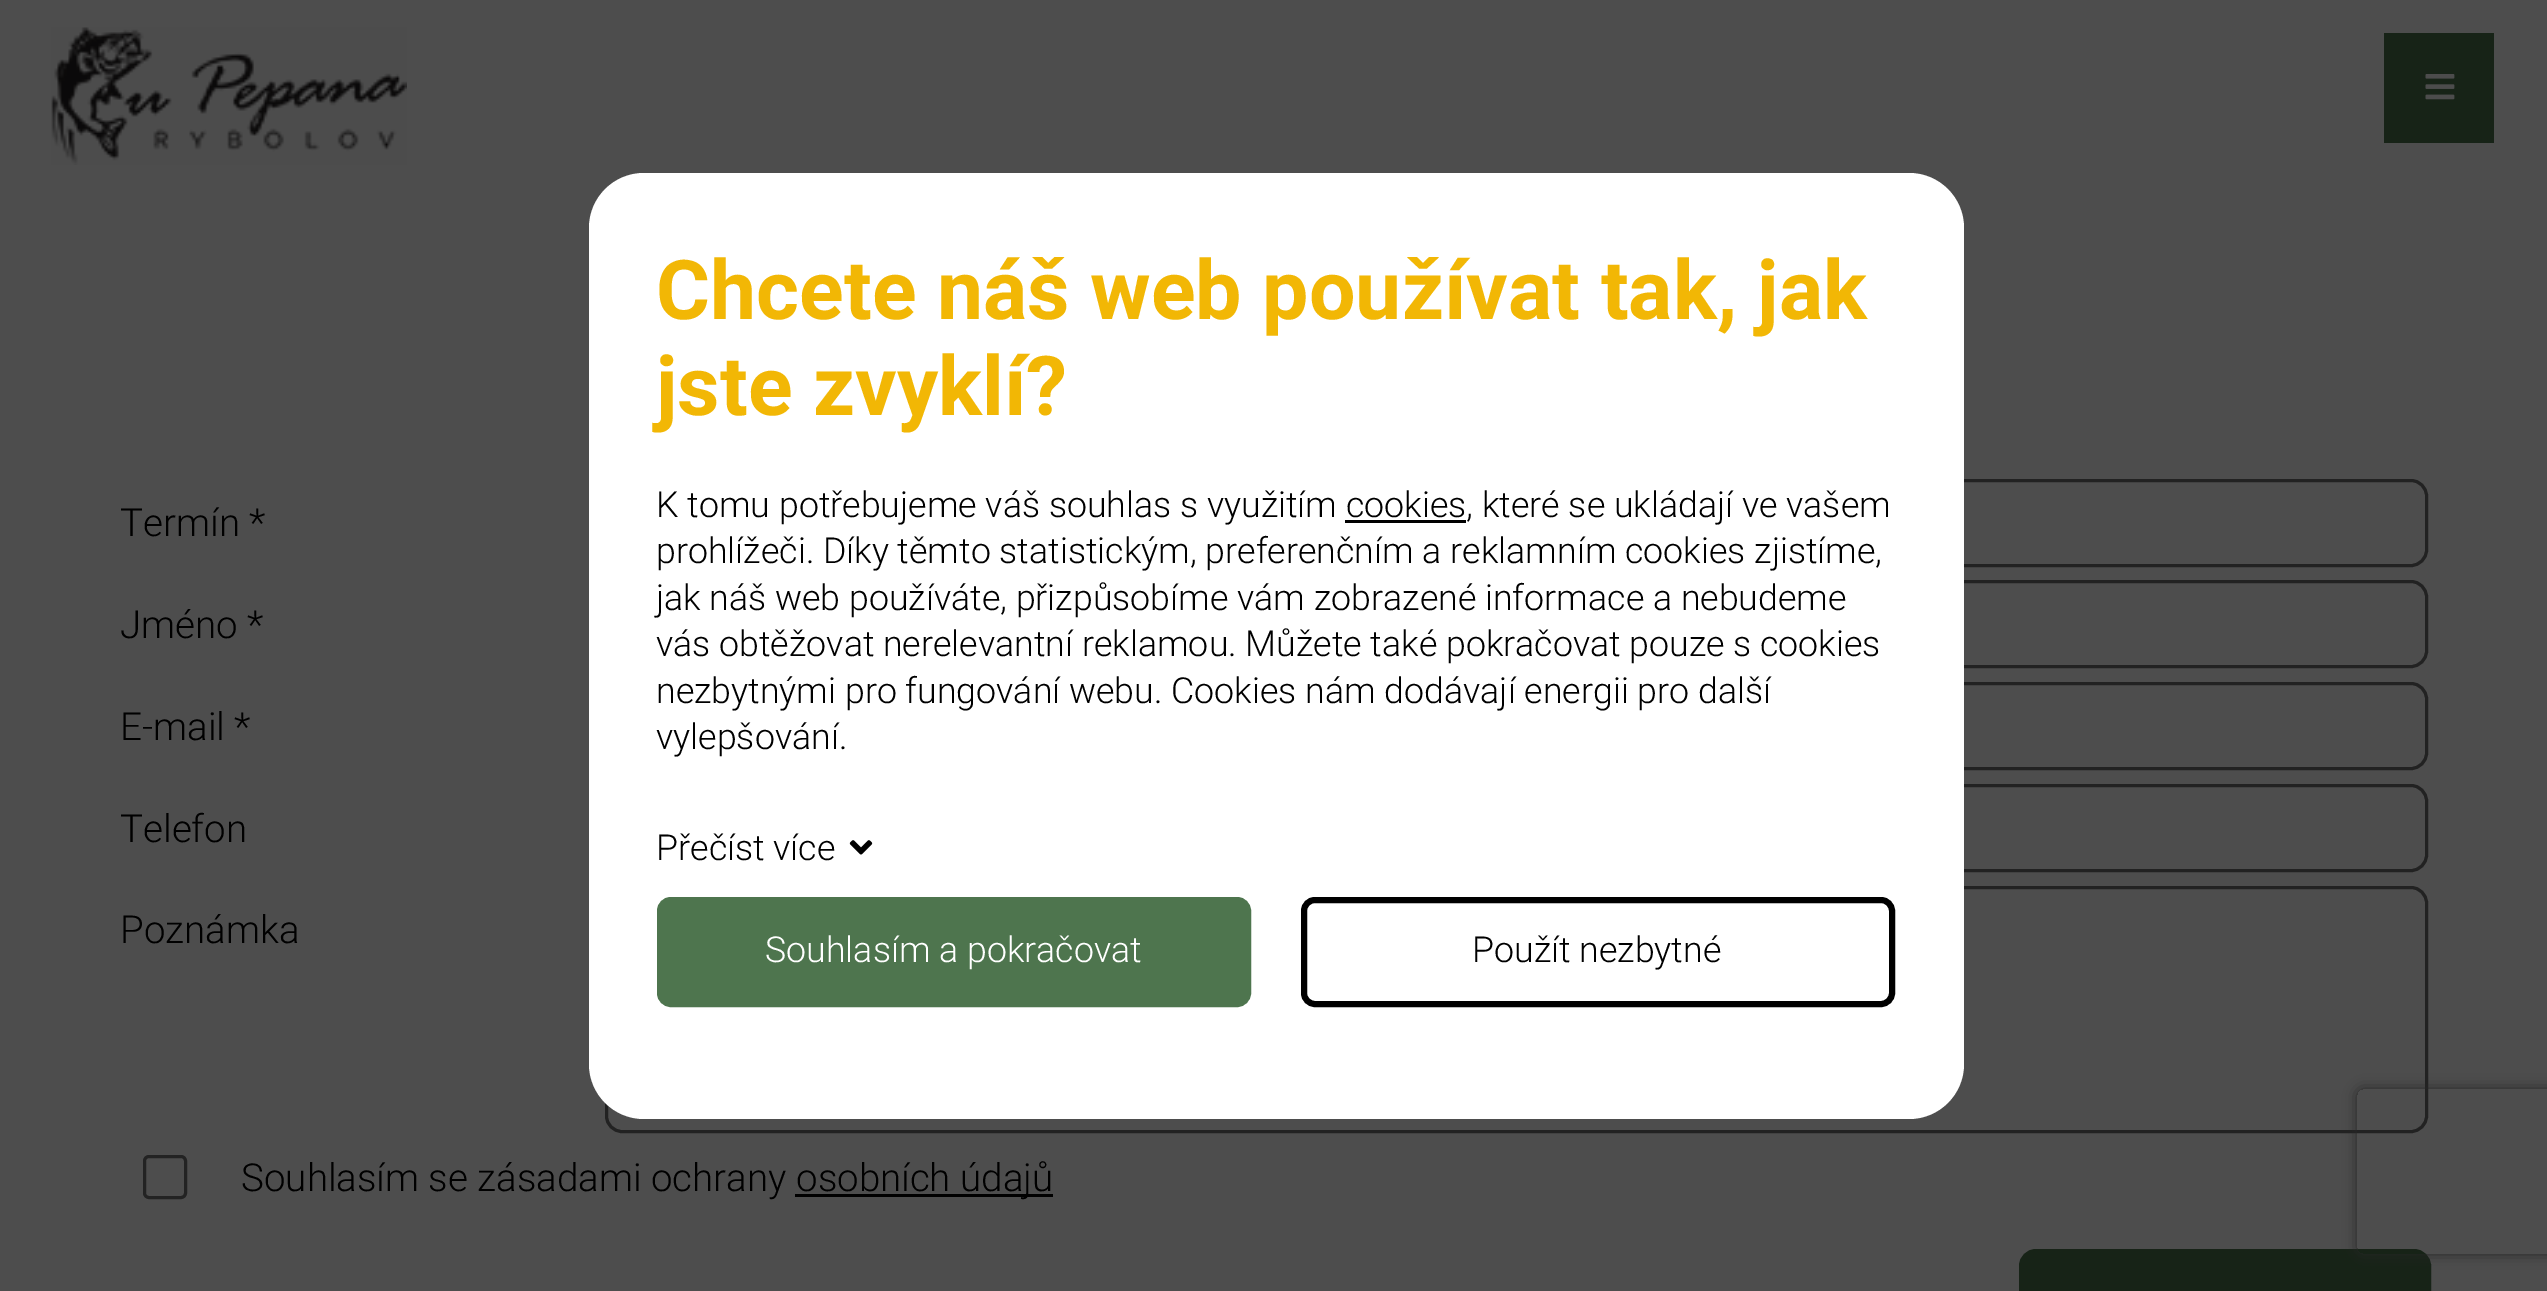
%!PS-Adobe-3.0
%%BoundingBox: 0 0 2547 1291
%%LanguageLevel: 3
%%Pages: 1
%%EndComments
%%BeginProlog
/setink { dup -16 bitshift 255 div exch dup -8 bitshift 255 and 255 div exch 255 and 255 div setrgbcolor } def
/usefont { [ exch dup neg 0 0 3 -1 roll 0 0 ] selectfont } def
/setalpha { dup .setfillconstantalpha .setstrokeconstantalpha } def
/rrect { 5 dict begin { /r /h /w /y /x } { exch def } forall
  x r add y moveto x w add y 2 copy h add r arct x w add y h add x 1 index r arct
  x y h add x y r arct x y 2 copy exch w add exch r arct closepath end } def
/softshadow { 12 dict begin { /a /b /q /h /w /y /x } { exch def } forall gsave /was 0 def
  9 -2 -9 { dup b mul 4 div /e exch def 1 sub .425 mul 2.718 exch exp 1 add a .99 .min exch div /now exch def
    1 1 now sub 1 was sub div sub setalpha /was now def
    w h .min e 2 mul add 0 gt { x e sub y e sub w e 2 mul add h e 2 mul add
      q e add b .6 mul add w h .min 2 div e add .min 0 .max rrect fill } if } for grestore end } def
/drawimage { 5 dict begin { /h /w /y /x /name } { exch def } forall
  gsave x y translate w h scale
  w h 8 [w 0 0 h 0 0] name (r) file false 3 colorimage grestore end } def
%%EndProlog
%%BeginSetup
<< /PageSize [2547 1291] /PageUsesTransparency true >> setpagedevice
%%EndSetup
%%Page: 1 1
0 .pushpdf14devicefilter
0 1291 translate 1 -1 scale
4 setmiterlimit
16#4D4D4D setink
0 0 2547 1291 rectfill
(img1.raw) 51 27 356 138 drawimage
16#172317 setink
2384 33 110 110 rectfill
(img2.raw) 2425 74 30 26 drawimage
/Roboto-Light 38.5 usefont
16#000000 setink
120 536 moveto (Termín *) show
16#222222 setink
3 setlinewidth
606.5 480.5 1820 85 15.5 rrect stroke
16#000000 setink
120 638 moveto (Jméno *) show
16#222222 setink
606.5 581.5 1820 85 15.5 rrect stroke
16#000000 setink
120 740 moveto (E-mail *) show
16#222222 setink
606.5 683.5 1820 85 15.5 rrect stroke
16#000000 setink
120 842 moveto (Telefon) show
16#222222 setink
606.5 785.5 1820 85 15.5 rrect stroke
16#000000 setink
120 943 moveto (Poznámka) show
16#222222 setink
606.5 887.5 1820 244 15.5 rrect stroke
16#232323 setink
144.5 1156.5 41 41 4.5 rrect stroke
16#000000 setink
241 1191 moveto (Souhlasím se zásadami ochrany) show
795 1194 258 3 rectfill
796 1191 moveto (osobních údajů) show
16#172317 setink
2020.5 1250.5 409 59 15.5 rrect gsave fill grestore
stroke
gsave
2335 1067 moveto 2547 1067 lineto 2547 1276 lineto 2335 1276 lineto closepath 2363 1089 moveto 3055 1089 lineto 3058.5 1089 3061 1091.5 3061 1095 curveto 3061 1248 lineto 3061 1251.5 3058.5 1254 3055 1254 curveto 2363 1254 lineto 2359.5 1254 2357 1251.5 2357 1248 curveto 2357 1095 lineto 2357 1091.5 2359.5 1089 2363 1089 curveto closepath eoclip newpath
16#262626 setink
2357 1089 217 165 6 7 1 softshadow
grestore
16#FFFFFF setink
589 173 1375 946 55 rrect fill
/Roboto-Bold 82.5 usefont
16#F2B705 setink
656 319 moveto (Chcete náš web používat tak, jak) show
656 415 moveto (jste zvyklí?) show
/Roboto-Light 35.75 usefont
16#000000 setink
656 517 moveto (K tomu potřebujeme váš souhlas s využitím cookies, které se ukládají ve vašem) show
1345 520 121 3 rectfill
[
    [(prohlížeči. Díky těmto statistickým, preferenčním a reklamním cookies zjistíme,) 656 563]
    [(jak náš web používáte, přizpůsobíme vám zobrazené informace a nebudeme) 656 610]
    [(vás obtěžovat nerelevantní reklamou. Můžete také pokračovat pouze s cookies) 656 656]
    [(nezbytnými pro fungování webu. Cookies nám dodávají energii pro další) 656 703]
    [(vylepšování.) 656 749]
    [(Přečíst více) 656 860]
] { aload pop moveto show } forall
(img3.raw) 849 840 24 15 drawimage
16#4E754E setink
660 900 588 104 11 rrect gsave fill grestore
6 setlinewidth
stroke
16#FFFFFF setink
765 962 moveto (Souhlasím a pokračovat) show
16#000000 setink
1304 900 588 104 11 rrect stroke
1472 962 moveto (Použít nezbytné) show
.poppdf14devicefilter showpage
%%EOF
